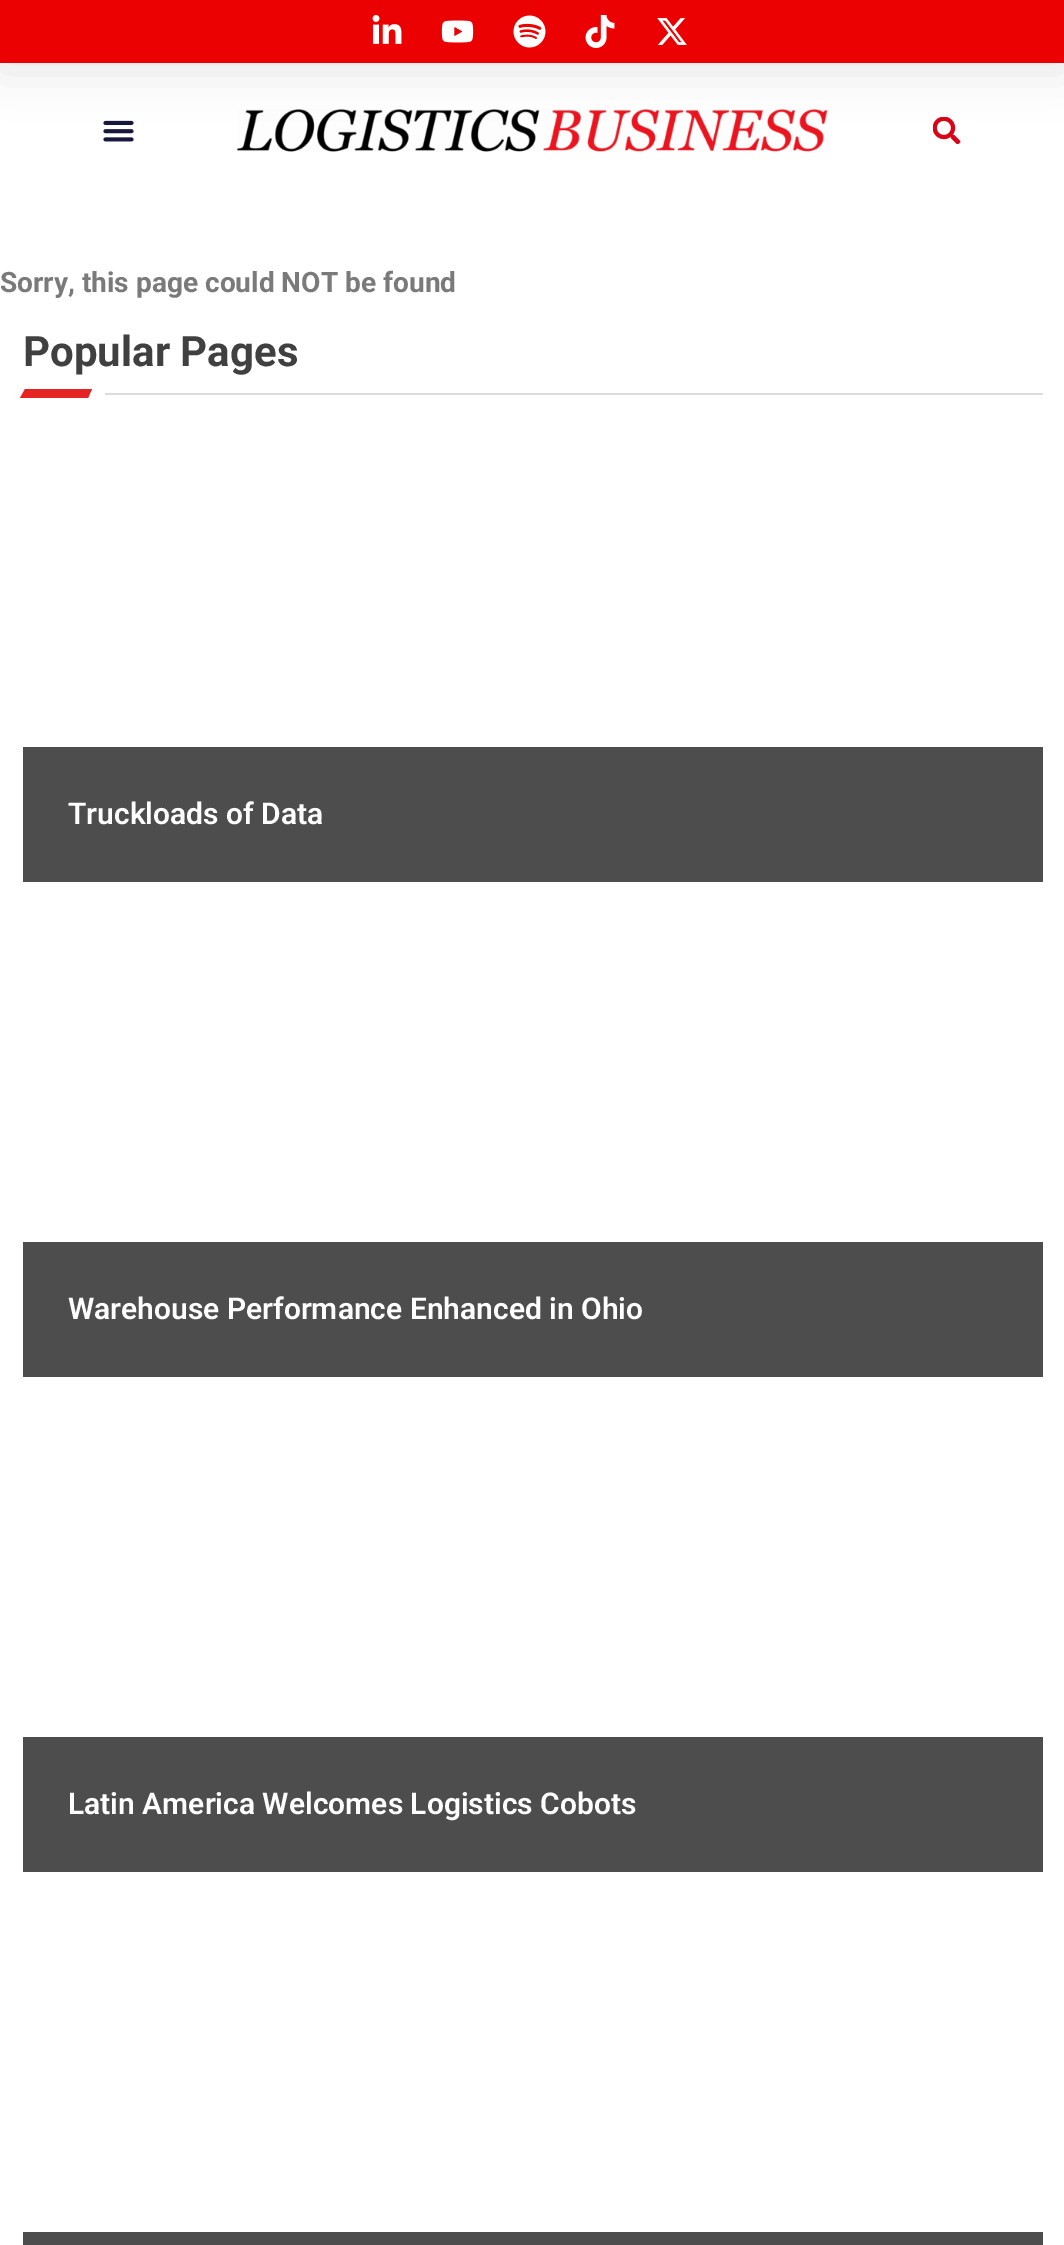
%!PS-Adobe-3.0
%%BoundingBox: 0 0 1064 2245
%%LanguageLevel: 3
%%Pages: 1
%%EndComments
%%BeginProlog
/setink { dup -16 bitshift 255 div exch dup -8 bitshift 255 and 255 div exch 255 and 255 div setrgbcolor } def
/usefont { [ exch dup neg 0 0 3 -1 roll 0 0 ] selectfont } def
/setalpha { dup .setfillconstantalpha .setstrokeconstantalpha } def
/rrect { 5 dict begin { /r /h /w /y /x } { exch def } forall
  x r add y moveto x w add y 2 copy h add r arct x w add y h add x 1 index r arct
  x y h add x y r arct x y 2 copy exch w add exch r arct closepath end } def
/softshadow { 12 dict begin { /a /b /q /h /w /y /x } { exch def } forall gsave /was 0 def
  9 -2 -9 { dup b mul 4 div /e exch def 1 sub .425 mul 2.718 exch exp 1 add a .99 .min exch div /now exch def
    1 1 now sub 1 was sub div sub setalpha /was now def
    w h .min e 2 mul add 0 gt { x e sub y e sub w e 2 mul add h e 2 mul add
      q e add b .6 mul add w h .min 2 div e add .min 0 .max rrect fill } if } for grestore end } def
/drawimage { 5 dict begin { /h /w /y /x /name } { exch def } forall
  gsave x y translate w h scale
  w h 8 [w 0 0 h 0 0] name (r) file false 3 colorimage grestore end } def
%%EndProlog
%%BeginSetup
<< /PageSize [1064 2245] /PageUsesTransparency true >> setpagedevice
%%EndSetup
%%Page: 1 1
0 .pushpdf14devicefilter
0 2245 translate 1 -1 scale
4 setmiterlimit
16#FFFFFF setink
0 0 1064 2245 rectfill
(img6.raw) 103 120 31 22 drawimage
(img7.raw) 237 109 591 43 drawimage
(img8.raw) 933 117 28 27 drawimage
16#000000 setink
0 8 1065 63 0 22.5 0.1 softshadow
16#EB0101 setink
0 0 1064 63 rectfill
(img1.raw) 372 15 30 29 drawimage
(img2.raw) 441 20 33 23 drawimage
(img3.raw) 513 15 33 33 drawimage
(img4.raw) 585 15 30 33 drawimage
(img5.raw) 657 18 30 27 drawimage
/Roboto-Bold 28.1 usefont
16#7A7A7A setink
0 292 moveto (Sorry, this page could NOT be found) show
/Roboto-Bold 42 usefont
16#404040 setink
23 366 moveto (Popular Pages) show
16#E52424 setink
25 389 moveto 92 389 lineto 88 398 lineto 20 398 lineto closepath fill
16#DCDCDC setink
105 393 938 2 rectfill
16#4D4D4D setink
23 747 1020 135 rectfill
/Roboto-SemiBold 30 usefont
16#FFFFFF setink
68 824 moveto (Truckloads of Data) show
16#4D4D4D setink
23 1242 1020 135 rectfill
16#FFFFFF setink
68 1319 moveto (Warehouse Performance Enhanced in Ohio) show
16#4D4D4D setink
23 1737 1020 135 rectfill
16#FFFFFF setink
68 1814 moveto (Latin America Welcomes Logistics Cobots) show
16#4D4D4D setink
23 2232 1020 13 rectfill
.poppdf14devicefilter showpage
%%EOF
